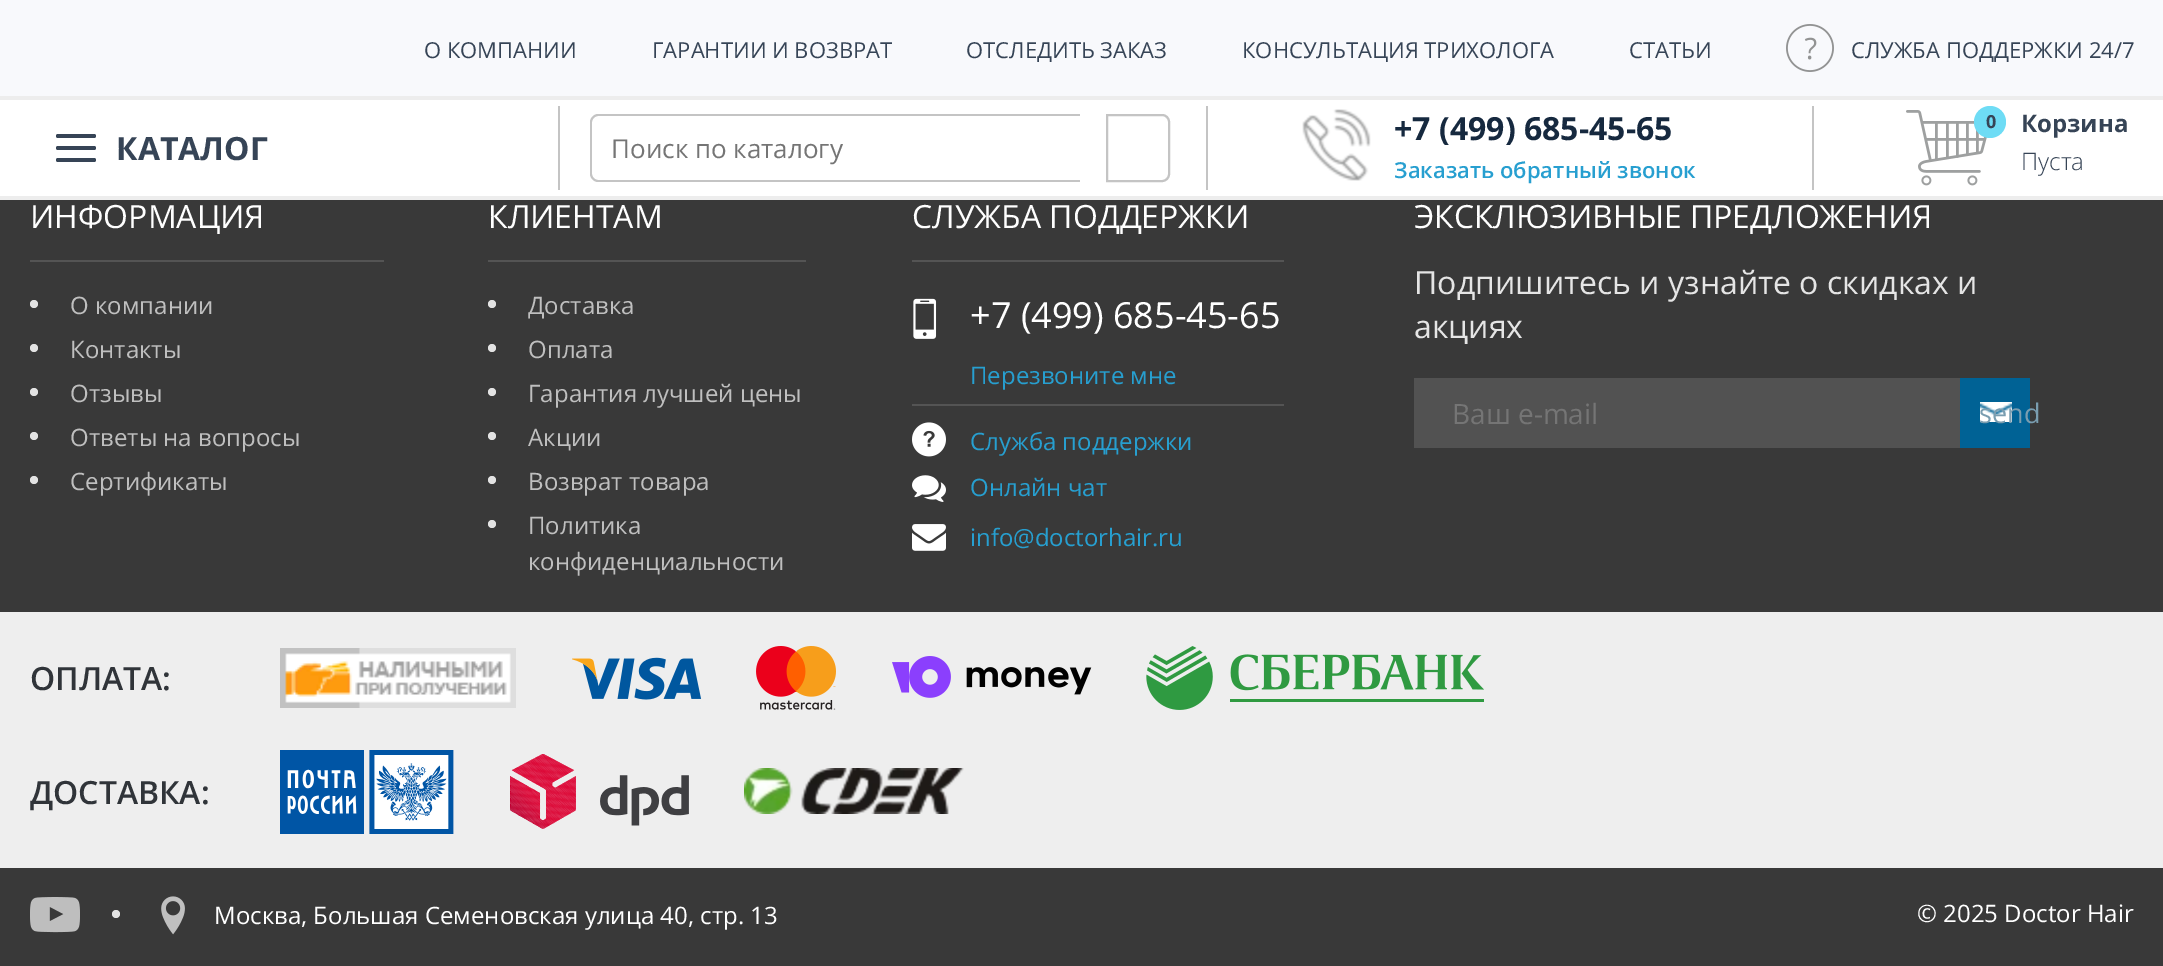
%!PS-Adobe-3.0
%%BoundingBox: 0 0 2163 966
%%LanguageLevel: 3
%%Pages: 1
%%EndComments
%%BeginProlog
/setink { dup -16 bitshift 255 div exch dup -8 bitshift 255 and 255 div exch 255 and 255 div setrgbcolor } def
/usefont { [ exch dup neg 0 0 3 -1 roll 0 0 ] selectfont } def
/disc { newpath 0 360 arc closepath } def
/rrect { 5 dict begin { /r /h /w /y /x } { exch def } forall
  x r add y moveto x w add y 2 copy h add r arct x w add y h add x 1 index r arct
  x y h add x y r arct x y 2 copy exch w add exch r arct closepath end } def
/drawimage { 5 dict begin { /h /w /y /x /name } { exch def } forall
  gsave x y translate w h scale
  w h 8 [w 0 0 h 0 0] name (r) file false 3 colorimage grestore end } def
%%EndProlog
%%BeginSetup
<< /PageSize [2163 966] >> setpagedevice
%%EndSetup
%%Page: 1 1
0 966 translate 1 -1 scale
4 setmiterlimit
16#393939 setink
0 0 2163 966 rectfill
16#F8F9FC setink
0 0 2163 96 rectfill
/OpenSans-Regular 22 usefont
16#364456 setink
[
    [(О КОМПАНИИ) 424 58]
    [(ГАРАНТИИ И ВОЗВРАТ) 652 58]
    [(ОТСЛЕДИТЬ ЗАКАЗ) 966 58]
    [(КОНСУЛЬТАЦИЯ ТРИХОЛОГА) 1242 58]
    [(СТАТЬИ) 1629 58]
] { aload pop moveto show } forall
(img1.raw) 1786 24 48 48 drawimage
1851 58 moveto (СЛУЖБА ПОДДЕРЖКИ 24/7) show
[
    [0 100 2163 96 16#FFFFFF]
    [0 96 2163 4 16#EDEDED]
    [0 196 2163 4 16#EDEDED]
] { aload pop setink rectfill } forall
16#364456 setink
56 134 40 4 2 rrect fill
56 146 40 4 2 rrect fill
56 158 40 4 2 rrect fill
/OpenSans-Bold 32 usefont
116 160 moveto (КАТАЛОГ) show
16#C4C4C4 setink
558 106 2 84 rectfill
598 114 moveto 1080 114 lineto 1080 182 lineto 598 182 lineto 594 182 590 178 590 174 curveto 590 122 lineto 590 118 594 114 598 114 curveto closepath 598 116 moveto 1080 116 lineto 1080 180 lineto 598 180 lineto 595 180 592 177 592 174 curveto 592 122 lineto 592 119 595 116 598 116 curveto closepath eofill
/OpenSans-Regular 26 usefont
16#757575 setink
611 158 moveto (Поиск по каталогу) show
16#C4C4C4 setink
2 setlinewidth
1107 115 moveto 1162 115 lineto 1166 115 1169 118 1169 122 curveto 1169 174 lineto 1169 178 1166 181 1162 181 curveto 1107 181 lineto closepath stroke
1206 106 2 84 rectfill
(img2.raw) 1302 109 69 72 drawimage
/OpenSans-Bold 32 usefont
16#16293F setink
1394 140 moveto (+7 \(499\) 685-45-65) show
16#C4C4C4 setink
1812 106 2 84 rectfill
/OpenSans-SemiBold 22 usefont
16#279FD0 setink
1394 178 moveto (Заказать обратный звонок) show
(img3.raw) 1906 110 81 76 drawimage
16#6EDCF5 setink
1990 122 16 disc fill
/OpenSans-Bold 18 usefont
16#364456 setink
1986 128 moveto (0) show
/OpenSans-Light 24 usefont
2021 170 moveto (Пуста) show
/OpenSans-Bold 24 usefont
2021 132 moveto (Корзина) show
/OpenSans-Regular 32 usefont
16#FFFFFF setink
30 228 moveto (ИНФОРМАЦИЯ) show
16#545454 setink
30 260 354 2 rectfill
16#E3E3E3 setink
34 304 4 disc fill
/OpenSans-Regular 24 usefont
16#BFBFBF setink
70 314 moveto (О компании) show
16#E3E3E3 setink
34 348 4 disc fill
16#BFBFBF setink
70 358 moveto (Контакты) show
16#E3E3E3 setink
34 392 4 disc fill
16#BFBFBF setink
70 402 moveto (Отзывы) show
16#E3E3E3 setink
34 436 4 disc fill
16#BFBFBF setink
70 446 moveto (Ответы на вопросы) show
16#E3E3E3 setink
34 480 4 disc fill
16#BFBFBF setink
70 490 moveto (Сертификаты) show
/OpenSans-Regular 32 usefont
16#FFFFFF setink
488 228 moveto (КЛИЕНТАМ) show
16#545454 setink
488 260 318 2 rectfill
16#E3E3E3 setink
492 304 4 disc fill
/OpenSans-Regular 24 usefont
16#BFBFBF setink
528 314 moveto (Доставка) show
16#E3E3E3 setink
492 348 4 disc fill
16#BFBFBF setink
528 358 moveto (Оплата) show
16#E3E3E3 setink
492 392 4 disc fill
16#BFBFBF setink
528 402 moveto (Гарантия лучшей цены) show
16#E3E3E3 setink
492 436 4 disc fill
16#BFBFBF setink
528 446 moveto (Акции) show
16#E3E3E3 setink
492 480 4 disc fill
16#BFBFBF setink
528 490 moveto (Возврат товара) show
16#E3E3E3 setink
492 524 4 disc fill
16#BFBFBF setink
528 534 moveto (Политика) show
528 570 moveto (конфиденциальности) show
/OpenSans-Regular 32 usefont
16#FFFFFF setink
912 228 moveto (СЛУЖБА ПОДДЕРЖКИ) show
16#545454 setink
912 260 372 2 rectfill
912 404 372 2 rectfill
(img4.raw) 913 298 24 41 drawimage
/OpenSans-Regular 36 usefont
16#FFFFFF setink
970 328 moveto (+7 \(499\) 685-45-65) show
/OpenSans-Regular 24 usefont
16#279FD0 setink
970 384 moveto (Перезвоните мне) show
(img5.raw) 912 422 34 35 drawimage
970 450 moveto (Служба поддержки) show
(img6.raw) 912 475 34 27 drawimage
970 496 moveto (Онлайн чат) show
(img7.raw) 912 524 34 27 drawimage
970 546 moveto (info@doctorhair.ru) show
/OpenSans-Regular 32 usefont
16#FFFFFF setink
1414 228 moveto (ЭКСКЛЮЗИВНЫЕ ПРЕДЛОЖЕНИЯ) show
16#E5E5E5 setink
1414 294 moveto (Подпишитесь и узнайте о скидках и) show
1414 338 moveto (акциях) show
16#525252 setink
1414 378 546 70 rectfill
/OpenSans-Regular 28 usefont
16#757575 setink
1452 424 moveto (Ваш e-mail) show
16#006295 setink
1960 378 70 70 rectfill
(img8.raw) 1980 402 32 20 drawimage
/OpenSans-Regular 27 usefont
16#7A9DB0 setink
1979 423 moveto (send) show
16#EEEEEE setink
0 612 2163 256 rectfill
/OpenSans-SemiBold 32 usefont
16#303439 setink
30 690 moveto (ОПЛАТА:) show
(img9.raw) 280 648 236 60 drawimage
(img10.raw) 572 657 130 43 drawimage
(img11.raw) 756 646 80 64 drawimage
(img12.raw) 892 656 200 42 drawimage
(img13.raw) 1146 646 338 64 drawimage
30 804 moveto (ДОСТАВКА:) show
(img14.raw) 280 750 174 84 drawimage
(img15.raw) 510 754 179 75 drawimage
(img16.raw) 744 768 220 46 drawimage
(img17.raw) 30 897 50 36 drawimage
16#E3E3E3 setink
116 914 4 disc fill
(img18.raw) 161 896 24 39 drawimage
/OpenSans-Regular 24 usefont
16#FFFFFF setink
214 924 moveto (Москва, Большая Семеновская улица 40, стр. 13) show
1917 922 moveto (© 2025 Doctor Hair) show
showpage
%%EOF
